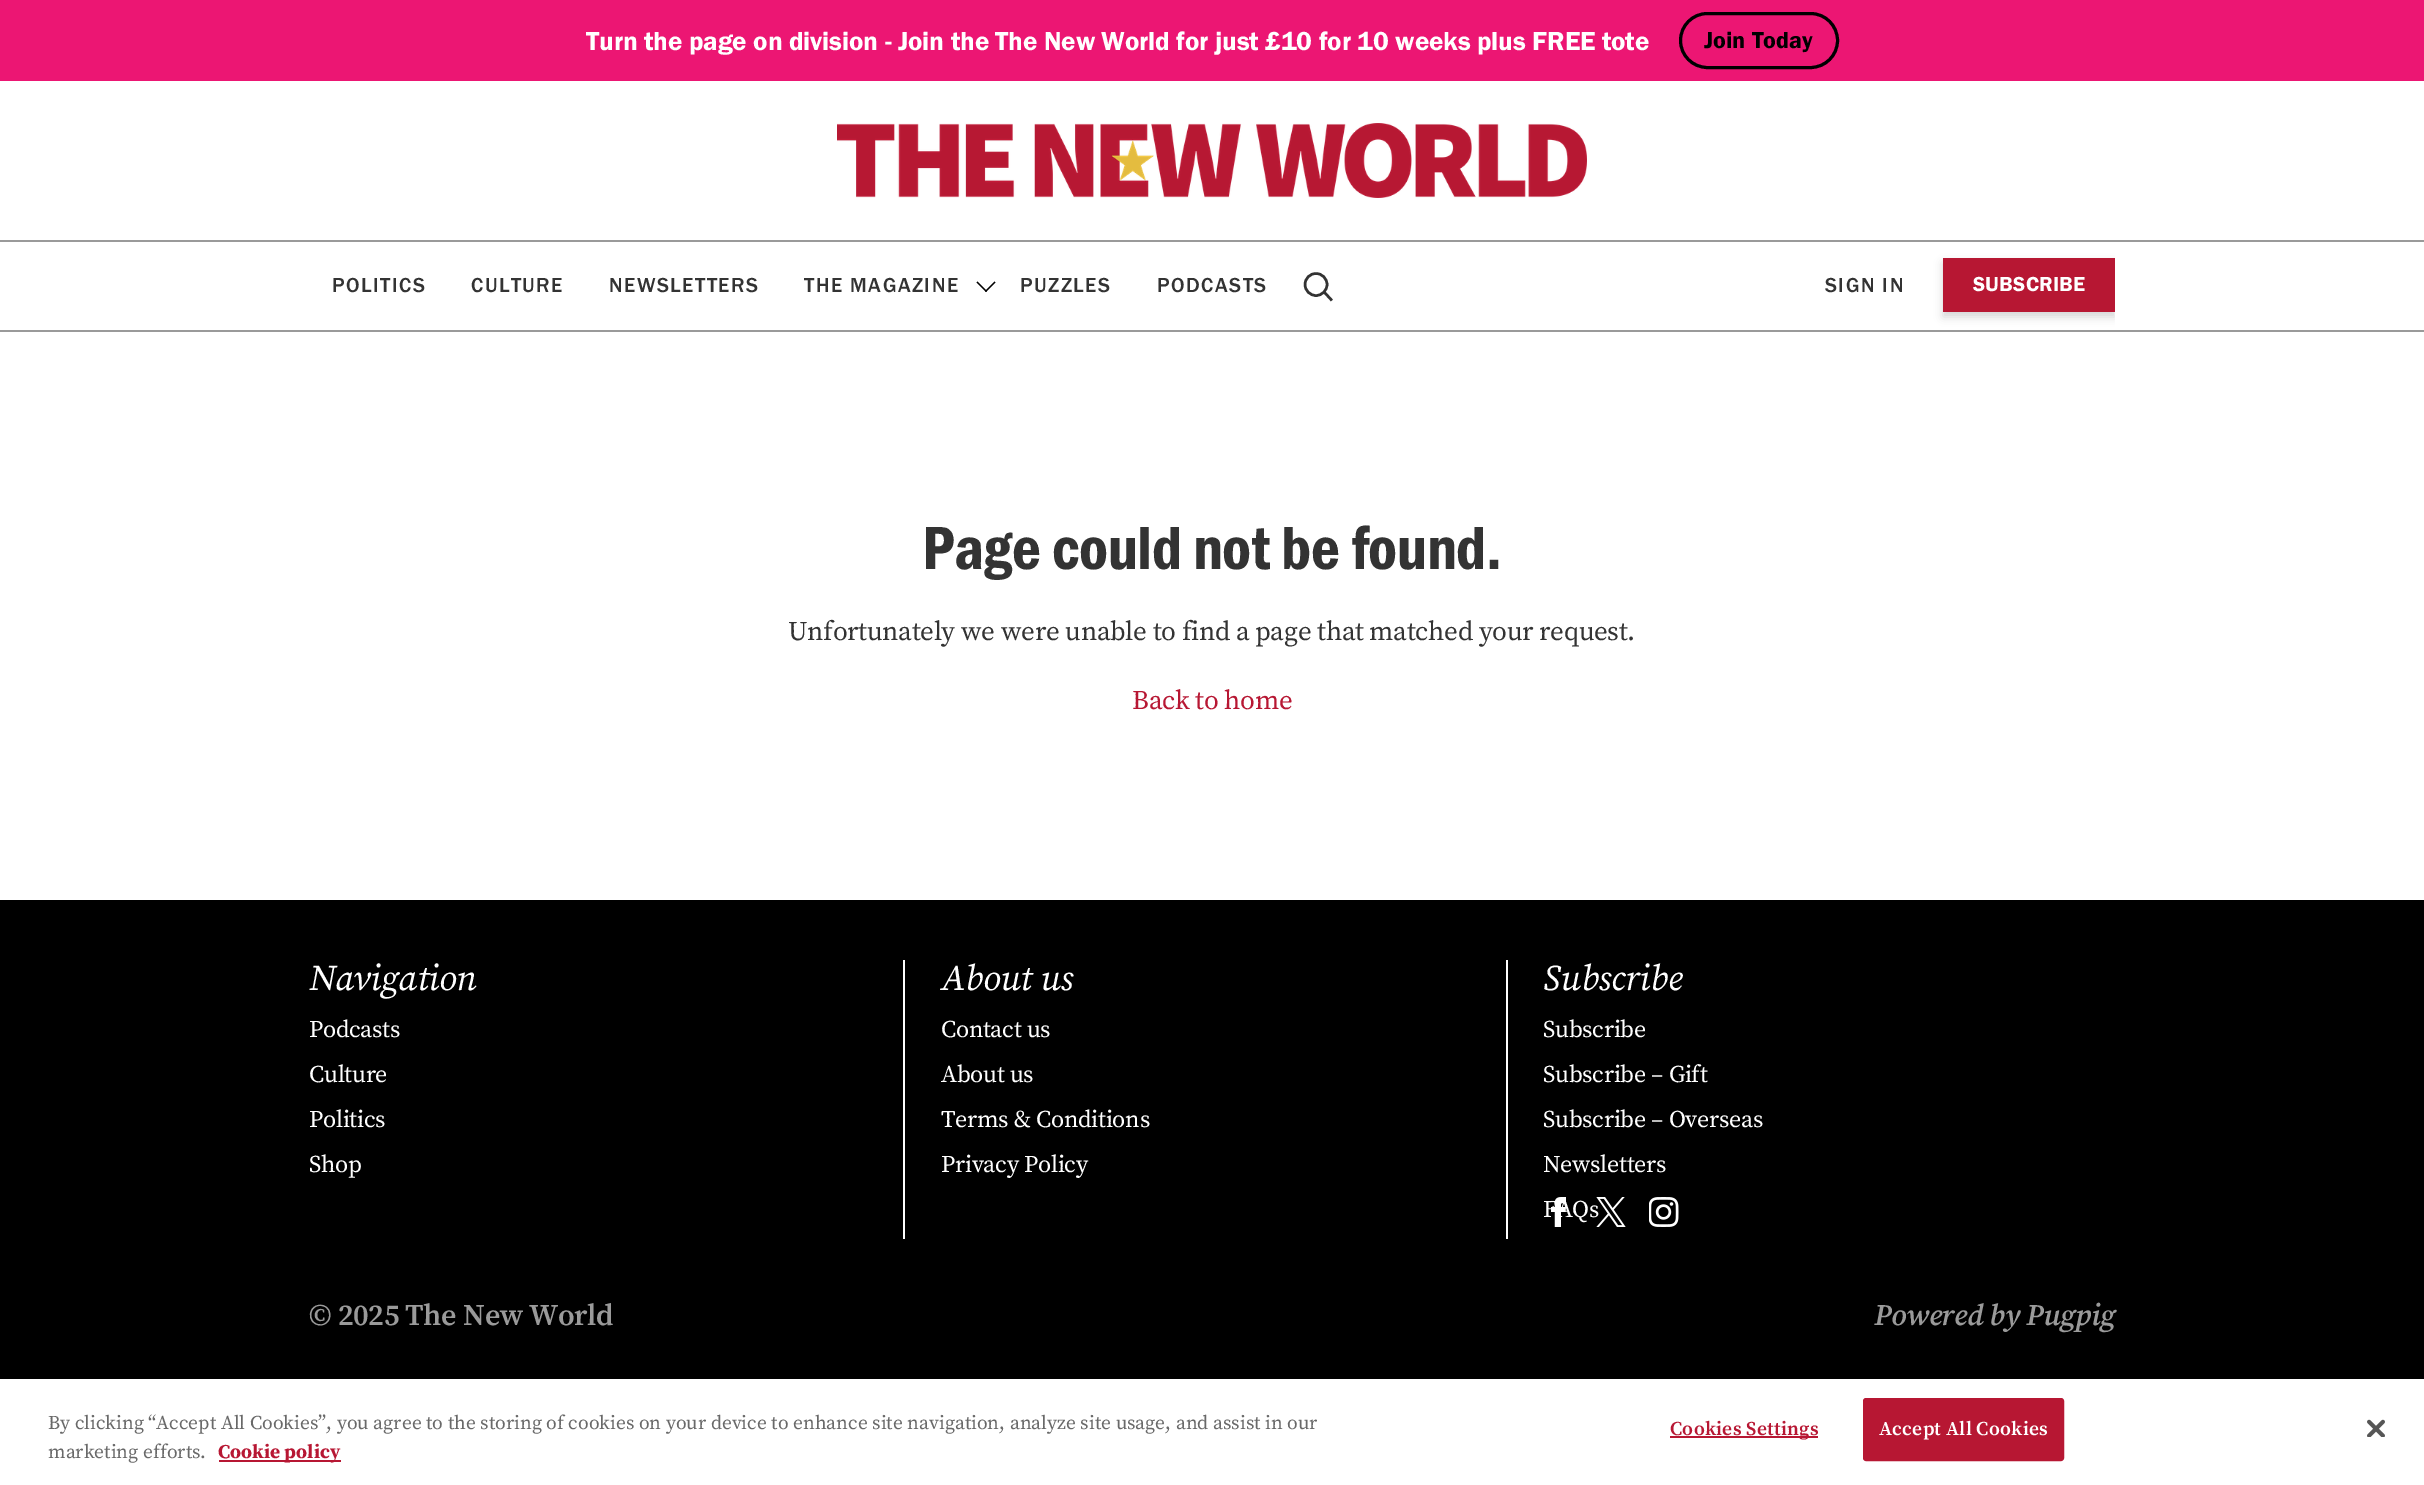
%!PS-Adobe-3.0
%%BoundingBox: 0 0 2424 1485
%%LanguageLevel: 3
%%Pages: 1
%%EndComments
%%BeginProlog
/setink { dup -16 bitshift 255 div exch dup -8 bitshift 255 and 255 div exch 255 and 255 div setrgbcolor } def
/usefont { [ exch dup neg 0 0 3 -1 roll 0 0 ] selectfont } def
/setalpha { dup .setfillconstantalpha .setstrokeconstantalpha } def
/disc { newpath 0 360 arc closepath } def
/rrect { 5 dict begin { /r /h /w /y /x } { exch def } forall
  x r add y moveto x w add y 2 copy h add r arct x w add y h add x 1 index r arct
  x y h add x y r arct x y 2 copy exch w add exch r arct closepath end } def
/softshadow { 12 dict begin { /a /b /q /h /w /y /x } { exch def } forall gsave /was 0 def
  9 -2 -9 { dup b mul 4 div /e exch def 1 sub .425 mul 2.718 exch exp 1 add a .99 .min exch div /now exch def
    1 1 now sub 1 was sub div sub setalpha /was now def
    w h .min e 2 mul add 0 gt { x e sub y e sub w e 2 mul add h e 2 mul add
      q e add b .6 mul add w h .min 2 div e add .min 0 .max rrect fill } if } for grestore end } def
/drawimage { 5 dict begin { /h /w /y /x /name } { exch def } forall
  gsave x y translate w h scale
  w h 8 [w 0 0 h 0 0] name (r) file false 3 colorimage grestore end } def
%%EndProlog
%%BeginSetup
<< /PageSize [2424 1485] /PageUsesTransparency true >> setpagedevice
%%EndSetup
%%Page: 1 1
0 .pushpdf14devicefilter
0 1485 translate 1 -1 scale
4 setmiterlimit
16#FFFFFF setink
0 0 2424 1485 rectfill
16#EC1673 setink
0 0 2424 81 rectfill
/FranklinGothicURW-SemiBold 27 usefont
16#FFFFFF setink
586 50 moveto -0.15 0 (Turn the page on division - Join the The New World for just £10 for 10 weeks plus FREE tote) ashow
16#000000 setink
3 setlinewidth
1680.5 13.5 157 54 27 rrect stroke
/FranklinGothicURW-SemiBold 24 usefont
1704 48 moveto (Join Today) show
(img1.raw) 837 123 750 75 drawimage
16#9A9A9A setink
0 240 2424 2 rectfill
0 330 2424 2 rectfill
/FranklinGothicURW-Medium 21 usefont
16#333333 setink
332 292 moveto 1.5 0 (POLITICS) ashow
471 292 moveto 1.5 0 (CULTURE) ashow
609 292 moveto 1.5 0 (NEWSLETTERS) ashow
804 292 moveto 1.5 0 (THE MAGAZINE) ashow
16#000000 setink
986 292 moveto 976.5 282.5 lineto 977.5 281.5 lineto 987 291 lineto closepath fill
986 292 moveto 985 291 lineto 994.5 281.5 lineto 995.5 282.5 lineto closepath fill
16#333333 setink
1020 292 moveto 1.5 0 (PUZZLES) ashow
1157 292 moveto 1.5 0 (PODCASTS) ashow
2.5 setlinewidth
1316 284.5 11 disc stroke
2 setlinecap
1325 293 moveto 1331 299.5 lineto stroke
1825 292 moveto 1.5 0 (SIGN IN) ashow
gsave
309 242 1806 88 rectclip
16#000000 setink
1943 263 172 54 0 4.5 0.16 softshadow
grestore
16#B71733 setink
1943 258 172 54 rectfill
/FranklinGothicURW-SemiBold 21 usefont
16#FFFFFF setink
1973 291 moveto 0.25 0 (SUBSCRIBE) ashow
/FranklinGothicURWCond-SemiBold 63 usefont
16#333333 setink
922 569 moveto -0.45 0 (Page could not be found.) ashow
/SourceSerifPro-Regular 27 usefont
788 640 moveto -0.3 0 (Unfortunately we were unable to find a page that matched your request.) ashow
16#B71733 setink
1132 709 moveto -0.3 0 (Back to home) ashow
16#000000 setink
0 900 2424 479 rectfill
/SourceSerifPro-Italic 36 usefont
16#FFFFFF setink
309 990 moveto -0.3 0 (Navigation) ashow
/SourceSerifPro-Regular 24 usefont
309 1037 moveto -0.3 0 (Podcasts) ashow
309 1082 moveto -0.3 0 (Culture) ashow
309 1127 moveto -0.3 0 (Politics) ashow
309 1172 moveto -0.3 0 (Shop) ashow
903 960 2 279 rectfill
/SourceSerifPro-Italic 36 usefont
941 990 moveto -0.3 0 (About us) ashow
/SourceSerifPro-Regular 24 usefont
941 1037 moveto -0.3 0 (Contact us) ashow
941 1082 moveto -0.3 0 (About us) ashow
941 1127 moveto -0.3 0 (Terms & Conditions) ashow
941 1172 moveto -0.3 0 (Privacy Policy) ashow
1506 960 2 279 rectfill
/SourceSerifPro-Italic 36 usefont
1543 990 moveto -0.3 0 (Subscribe) ashow
/SourceSerifPro-Regular 24 usefont
1543 1037 moveto -0.3 0 (Subscribe) ashow
1543 1082 moveto -0.3 0 (Subscribe – Gift) ashow
1543 1127 moveto -0.3 0 (Subscribe – Overseas) ashow
1543 1172 moveto -0.3 0 (Newsletters) ashow
1543 1217 moveto -0.3 0 (FAQs) ashow
(img2.raw) 1551 1197 15 30 drawimage
(img3.raw) 1596 1197 30 30 drawimage
(img4.raw) 1649 1197 30 30 drawimage
/SourceSerifPro-SemiBold 30 usefont
16#9A9A9A setink
309 1325 moveto -0.3 0 (© 2025 The New World) ashow
/SourceSerifPro-SemiBoldItalic 30 usefont
1874 1325 moveto -0.3 0 (Powered by Pugpig) ashow
/SourceSerifPro-Regular 19.5 usefont
16#696969 setink
48 1429 moveto (By clicking “Accept All Cookies”, you agree to the storing of cookies on your device to enhance site navigation, analyze site usage, and assist in our) show
48 1458 moveto (marketing efforts.) show
16#B71733 setink
219 1460 122 2 rectfill
/SourceSerifPro-Bold 19.5 usefont
218 1458 moveto (Cookie policy) show
1670 1436 148 2 rectfill
/SourceSerifPro-SemiBold 19.5 usefont
1670 1435 moveto 0.25 0 (Cookies Settings) ashow
1864 1399 199 61 2 rrect gsave fill grestore
2 setlinewidth
0 setlinecap
stroke
16#FFFFFF setink
1879 1435 moveto 0.25 0 (Accept All Cookies) ashow
(img5.raw) 2367 1419 18 18 drawimage
.poppdf14devicefilter showpage
%%EOF
